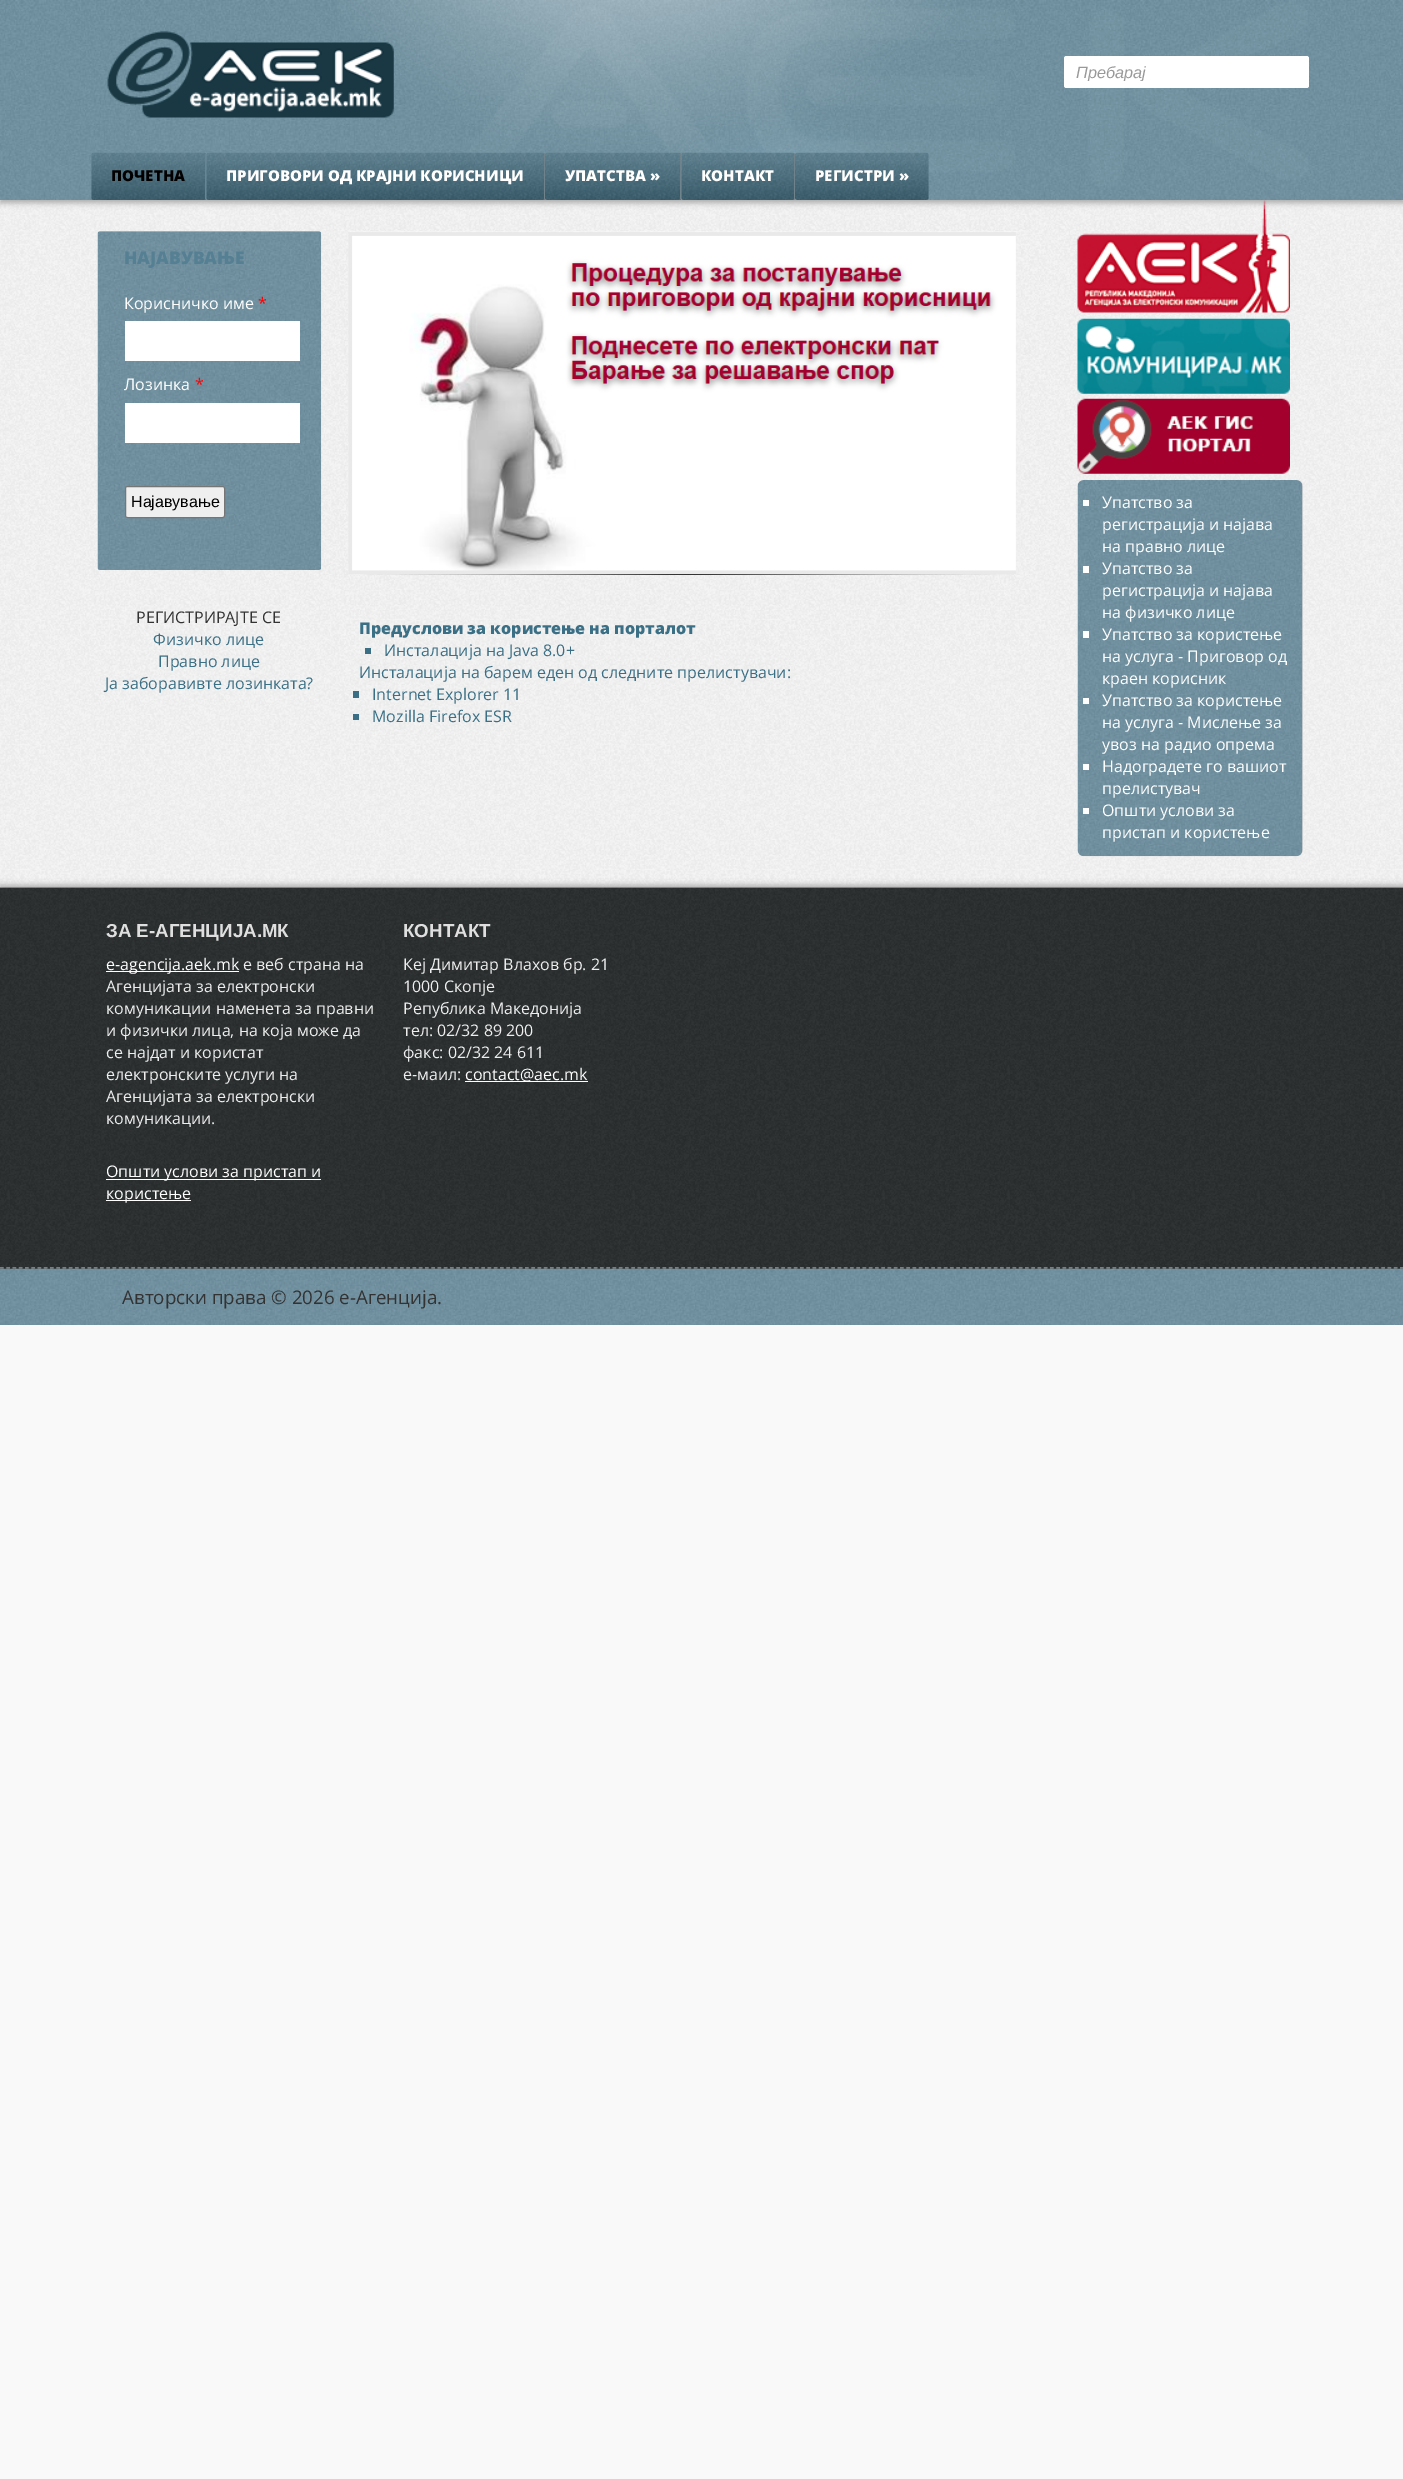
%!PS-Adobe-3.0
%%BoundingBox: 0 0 1403 2479
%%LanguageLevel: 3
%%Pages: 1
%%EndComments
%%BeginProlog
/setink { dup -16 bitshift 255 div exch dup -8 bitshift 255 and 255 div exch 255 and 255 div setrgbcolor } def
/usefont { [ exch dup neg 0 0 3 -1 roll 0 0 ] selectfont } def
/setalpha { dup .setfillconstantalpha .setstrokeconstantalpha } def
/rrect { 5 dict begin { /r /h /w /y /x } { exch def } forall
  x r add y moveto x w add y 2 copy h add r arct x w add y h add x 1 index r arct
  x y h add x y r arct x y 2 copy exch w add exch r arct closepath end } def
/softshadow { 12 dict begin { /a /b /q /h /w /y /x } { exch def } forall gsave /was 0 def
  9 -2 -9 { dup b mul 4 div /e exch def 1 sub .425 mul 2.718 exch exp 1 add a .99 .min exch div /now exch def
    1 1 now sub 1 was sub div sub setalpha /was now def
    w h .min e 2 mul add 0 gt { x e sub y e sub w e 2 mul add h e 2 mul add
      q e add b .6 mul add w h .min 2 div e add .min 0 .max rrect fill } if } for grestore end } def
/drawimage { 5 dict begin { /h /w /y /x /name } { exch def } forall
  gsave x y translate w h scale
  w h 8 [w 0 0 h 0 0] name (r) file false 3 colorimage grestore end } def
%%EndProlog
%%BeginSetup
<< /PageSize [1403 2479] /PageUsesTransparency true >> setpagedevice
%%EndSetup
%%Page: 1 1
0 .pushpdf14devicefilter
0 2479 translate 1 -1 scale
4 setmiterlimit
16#F9F9F9 setink
0 0 1403 2479 rectfill
(img1.raw) 0 200 1403 688 drawimage
16#AAAAAA setink
0 3 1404 200 0 3 1 softshadow
(img2.raw) 0 0 1403 200 drawimage
(img3.raw) 337 0 971 200 drawimage
(img4.raw) 107 31 287 87 drawimage
16#FFFFFF setink
1064 56 245 32 2.5 rrect fill
gsave
1064 63 245 18 rectclip
/LiberationSans-Italic 16.25 usefont
16#999999 setink
1076 78 moveto (Пребарај) show
grestore
(img5.raw) 91 152 115 48 drawimage
16#70828A setink
205 154 1 45 rectfill
/OpenSans-ExtraBold 15 usefont
16#000000 setink
111 181 moveto (ПОЧЕТНА) show
(img6.raw) 206 152 339 48 drawimage
16#70828A setink
544 154 1 45 rectfill
16#FFFFFF setink
226 181 moveto (ПРИГОВОРИ ОД КРАЈНИ КОРИСНИЦИ) show
(img7.raw) 545 152 136 48 drawimage
16#70828A setink
680 154 1 45 rectfill
16#FFFFFF setink
565 181 moveto (УПАТСТВА ») show
(img8.raw) 681 152 114 48 drawimage
16#70828A setink
794 154 1 45 rectfill
16#FFFFFF setink
701 181 moveto (КОНТАКТ) show
(img9.raw) 795 152 134 48 drawimage
815 181 moveto (РЕГИСТРИ ») show
16#DDDDDD setink
98 231 223 339 2.5 rrect fill
(img10.raw) 97 231 225 339 drawimage
/OpenSans-ExtraBold 17.5 usefont
16#557F92 setink
124 264 moveto (НАЈАВУВАЊЕ) show
/OpenSans-Regular 16 usefont
16#FFFFFF setink
124 309 moveto (Корисничко име) show
16#FF0000 setink
258 309 moveto (*) show
16#FFFFFF setink
125 321 175 40 rectfill
124 390 moveto (Лозинка) show
16#FF0000 setink
195 390 moveto (*) show
16#FFFFFF setink
125 403 175 40 rectfill
16#EFEFEF setink
125.5 486.5 99 31 2 rrect gsave fill grestore
16#767676 setink
stroke
/LiberationSans-Regular 16 usefont
16#000000 setink
131 507 moveto (Најавување) show
/OpenSans-Regular 16 usefont
16#333333 setink
136 623 moveto (РЕГИСТРИРАЈТЕ СЕ) show
16#3A6F85 setink
[
    [(Физичко лице) 153 645]
    [(Правно лице) 158 667]
    [(Ја заборавивте лозинката?) 105 689]
] { aload pop moveto show } forall
16#F9F9F9 setink
348 231 673 1 rectfill
(img11.raw) 348 231 673 344 drawimage
/OpenSans-ExtraBold 16 usefont
16#3A6F85 setink
359 634 moveto (Предуслови за користење на порталот) show
365 648 6 6 rectfill
/OpenSans-Regular 16 usefont
384 656 moveto (Инсталација на Java 8.0+) show
359 678 moveto (Инсталација на барем еден од следните прелистувачи:) show
353 691 6 7 rectfill
372 700 moveto (Internet Explorer 11) show
353 714 6 6 rectfill
372 722 moveto (Mozilla Firefox ESR) show
(img12.raw) 1077 200 213 113 drawimage
(img13.raw) 1077 318 213 76 drawimage
(img14.raw) 1077 398 213 76 drawimage
16#DDDDDD setink
1078 480 225 376 6 rrect fill
(img15.raw) 1077 480 226 377 drawimage
16#FFFFFF setink
1083 500 6 6 rectfill
[
    [(Упатство за) 1102 508]
    [(регистрација и најава) 1102 530]
    [(на правно лице) 1102 552]
] { aload pop moveto show } forall
1083 566 6 7 rectfill
[
    [(Упатство за) 1102 574]
    [(регистрација и најава) 1102 596]
    [(на физичко лице) 1102 618]
] { aload pop moveto show } forall
1083 631 6 7 rectfill
[
    [(Упатство за користење) 1102 640]
    [(на услуга - Приговор од) 1102 662]
    [(краен корисник) 1102 684]
] { aload pop moveto show } forall
1083 698 6 6 rectfill
[
    [(Упатство за користење) 1102 706]
    [(на услуга - Мислење за) 1102 728]
    [(увоз на радио опрема) 1102 750]
] { aload pop moveto show } forall
1083 764 6 6 rectfill
1102 772 moveto (Надоградете го вашиот) show
1102 794 moveto (прелистувач) show
1083 808 6 6 rectfill
1102 816 moveto (Општи услови за) show
1102 838 moveto (пристап и користење) show
16#AAAAAA setink
0 885 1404 381 0 3 1 softshadow
(img16.raw) 0 887 1403 382 drawimage
16#999999 setink
1.2 setlinewidth
[3.75 2.5] 0 setdash
0 1268 moveto 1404 1268 lineto stroke
/LiberationSans-Bold 18.75 usefont
16#DFDFDF setink
106 937 moveto (ЗА Е-АГЕНЦИЈА.МК) show
16#FFFFFF setink
106 971 133 1 rectfill
/OpenSans-Regular 16 usefont
106 970 moveto (e-agencija.aek.mk) show
16#EEEEEE setink
[
    [(е веб страна на) 243 970]
    [(Агенцијата за електронски) 106 992]
    [(комуникации наменета за правни) 106 1014]
    [(и физички лица, на која може да) 106 1036]
    [(се најдат и користат) 106 1058]
    [(електронските услуги на) 106 1080]
    [(Агенцијата за електронски) 106 1102]
    [(комуникации.) 106 1124]
] { aload pop moveto show } forall
16#FFFFFF setink
106 1179 215 1 rectfill
106 1177 moveto (Општи услови за пристап и) show
106 1200 85 1 rectfill
106 1199 moveto (користење) show
/LiberationSans-Bold 18.75 usefont
16#DFDFDF setink
403 937 moveto (КОНТАКТ) show
/OpenSans-Regular 16 usefont
16#EEEEEE setink
[
    [(Кеј Димитар Влахов бр. 21) 403 970]
    [(1000 Скопје) 403 992]
    [(Република Македонија) 403 1014]
    [(тел: 02/32 89 200) 403 1036]
    [(факс: 02/32 24 611) 403 1058]
    [(е-маил:) 403 1080]
] { aload pop moveto show } forall
16#FFFFFF setink
465 1081 123 1 rectfill
465 1080 moveto (contact@aec.mk) show
(img17.raw) 0 1268 1403 57 drawimage
/OpenSans-Regular 18.75 usefont
16#333333 setink
122 1304 moveto (Авторски права © 2026 е-Агенција.) show
.poppdf14devicefilter showpage
%%EOF
